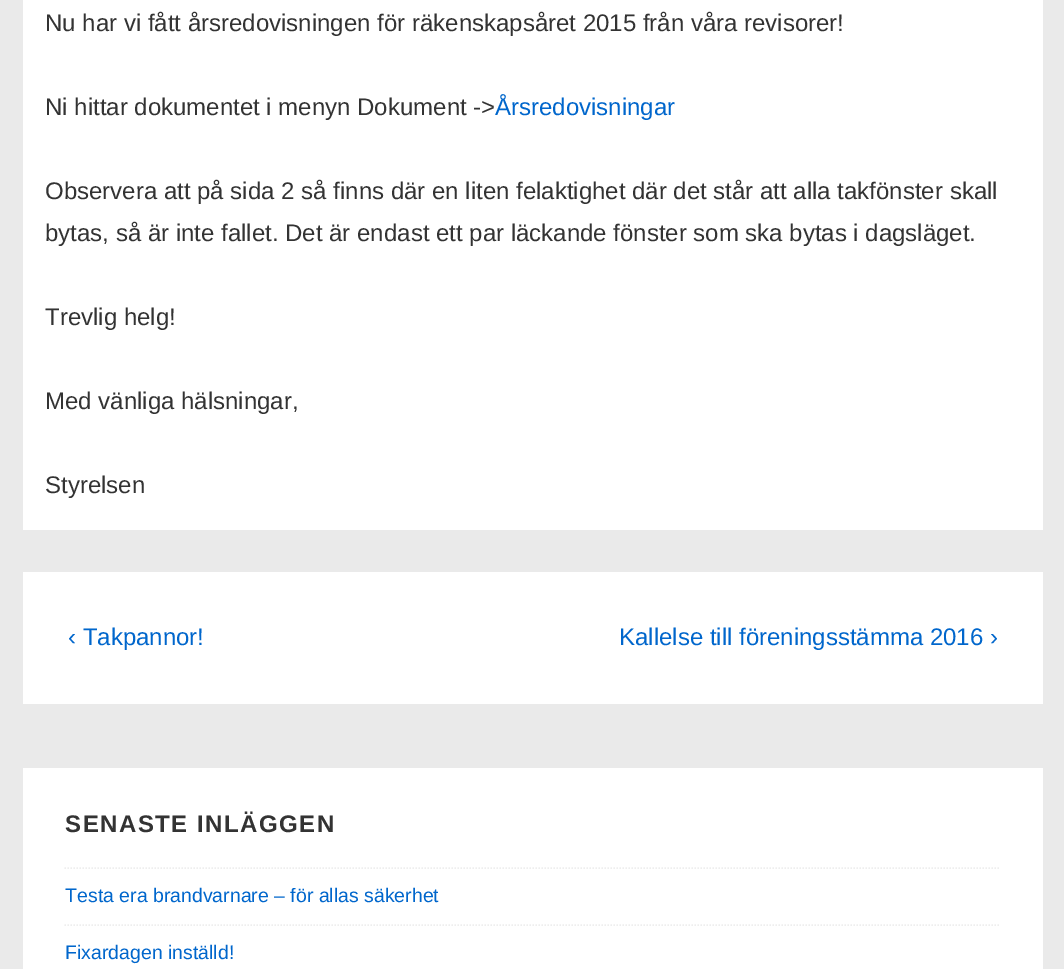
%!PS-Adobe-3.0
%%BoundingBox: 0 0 1064 969
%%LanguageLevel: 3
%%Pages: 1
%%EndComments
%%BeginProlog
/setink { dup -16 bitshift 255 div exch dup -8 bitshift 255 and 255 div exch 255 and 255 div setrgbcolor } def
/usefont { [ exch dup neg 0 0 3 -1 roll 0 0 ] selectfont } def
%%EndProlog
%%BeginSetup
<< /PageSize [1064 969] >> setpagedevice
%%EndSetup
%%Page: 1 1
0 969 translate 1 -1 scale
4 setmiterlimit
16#EAEAEA setink
0 0 1064 969 rectfill
16#FFFFFF setink
23 0 1020 530 rectfill
/LiberationSans-Regular 24 usefont
16#333333 setink
45 31 moveto (Nu har vi fått årsredovisningen för räkenskapsåret 2015 från våra revisorer!) show
45 115 moveto (Ni hittar dokumentet i menyn Dokument ->) show
16#0066CC setink
495 115 moveto (Årsredovisningar) show
16#333333 setink
[
    [(Observera att på sida 2 så finns där en liten felaktighet där det står att alla takfönster skall) 45 199]
    [(bytas, så är inte fallet. Det är endast ett par läckande fönster som ska bytas i dagsläget.) 45 241]
    [(Trevlig helg!) 45 325]
    [(Med vänliga hälsningar,) 45 409]
    [(Styrelsen) 45 493]
] { aload pop moveto show } forall
16#FFFFFF setink
23 572 1020 132 rectfill
16#0066CC setink
68 645 moveto (‹ Takpannor!) show
619 645 moveto (Kallelse till föreningsstämma 2016 ›) show
16#FFFFFF setink
23 768 1020 201 rectfill
/LiberationSans-Bold 24 usefont
16#333333 setink
65 832 moveto 1.5 0 (SENASTE INLÄGGEN) ashow
16#EEEEEE setink
1.5 setlinewidth
[1.5 1.5] 0 setdash
64.5 868 moveto 1000.5 868 lineto stroke
/LiberationSans-Regular 19.5 usefont
16#0066CC setink
65 902 moveto (Testa era brandvarnare – för allas säkerhet) show
16#EEEEEE setink
64.5 925 moveto 1000.5 925 lineto stroke
16#0066CC setink
65 959 moveto (Fixardagen inställd!) show
showpage
%%EOF
